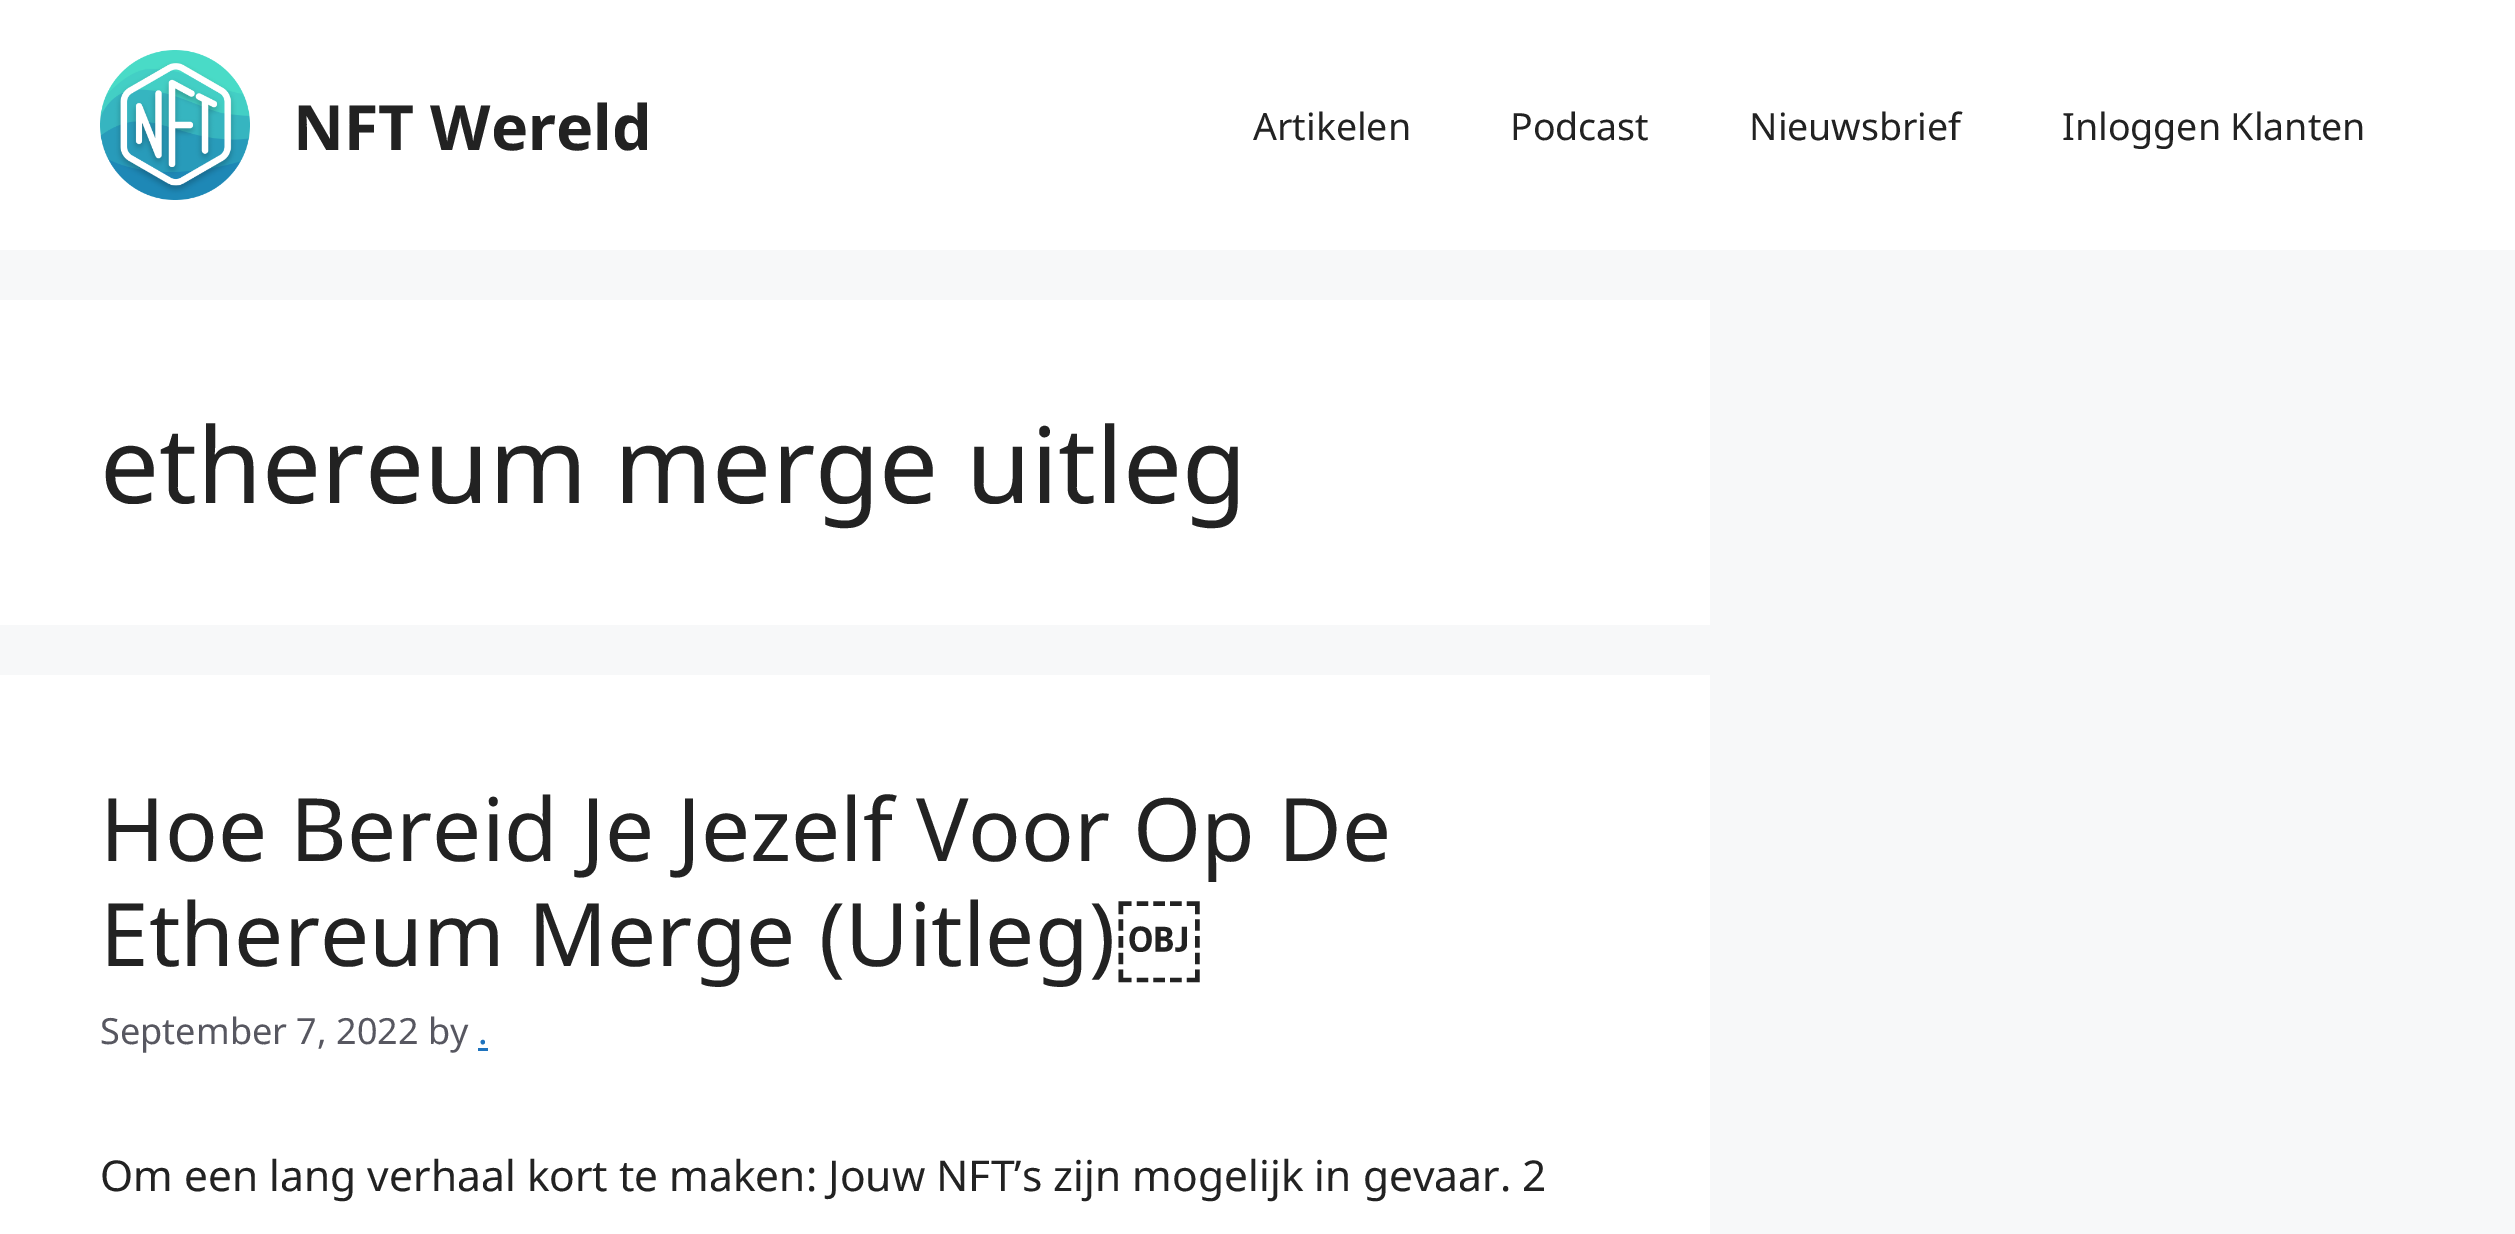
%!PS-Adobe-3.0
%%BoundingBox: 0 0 2515 1234
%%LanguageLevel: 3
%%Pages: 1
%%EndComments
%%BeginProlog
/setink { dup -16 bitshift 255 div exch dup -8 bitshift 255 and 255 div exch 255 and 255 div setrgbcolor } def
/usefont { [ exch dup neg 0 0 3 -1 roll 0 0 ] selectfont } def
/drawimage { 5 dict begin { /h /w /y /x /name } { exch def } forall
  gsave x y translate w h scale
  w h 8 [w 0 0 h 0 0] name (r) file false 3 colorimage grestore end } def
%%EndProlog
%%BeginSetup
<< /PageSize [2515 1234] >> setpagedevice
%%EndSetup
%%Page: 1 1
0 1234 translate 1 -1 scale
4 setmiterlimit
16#F7F8F9 setink
0 0 2515 1234 rectfill
16#FFFFFF setink
0 0 2515 250 rectfill
(img1.raw) 100 50 150 150 drawimage
/NotoSans-Bold 62.5 usefont
16#222222 setink
293 150 moveto (NFT Wereld) show
/NotoSans-Regular 37.5 usefont
[
    [(Artikelen) 1253 140]
    [(Podcast) 1510 140]
    [(Nieuwsbrief) 1749 140]
    [(Inloggen Klanten) 2062 140]
] { aload pop moveto show } forall
16#FFFFFF setink
0 300 1710 325 rectfill
/NotoSans-Regular 105 usefont
16#222222 setink
100 503 moveto (ethereum merge uitleg) show
16#FFFFFF setink
0 675 1710 559 rectfill
/NotoSans-Regular 87.5 usefont
16#222222 setink
100 861 moveto (Hoe Bereid Je Jezelf Voor Op De) show
100 966 moveto (Ethereum Merge \(Uitleg\)￼) show
/NotoSans-Regular 36.1 usefont
16#575760 setink
100 1044 moveto (September 7, 2022 by) show
16#1E73BE setink
478 1044 moveto (.) show
478 1048 10 3 rectfill
/NotoSans-Regular 42.5 usefont
16#222222 setink
100 1191 moveto (Om een lang verhaal kort te maken: Jouw NFT’s zijn mogelijk in gevaar. 2) show
showpage
%%EOF
